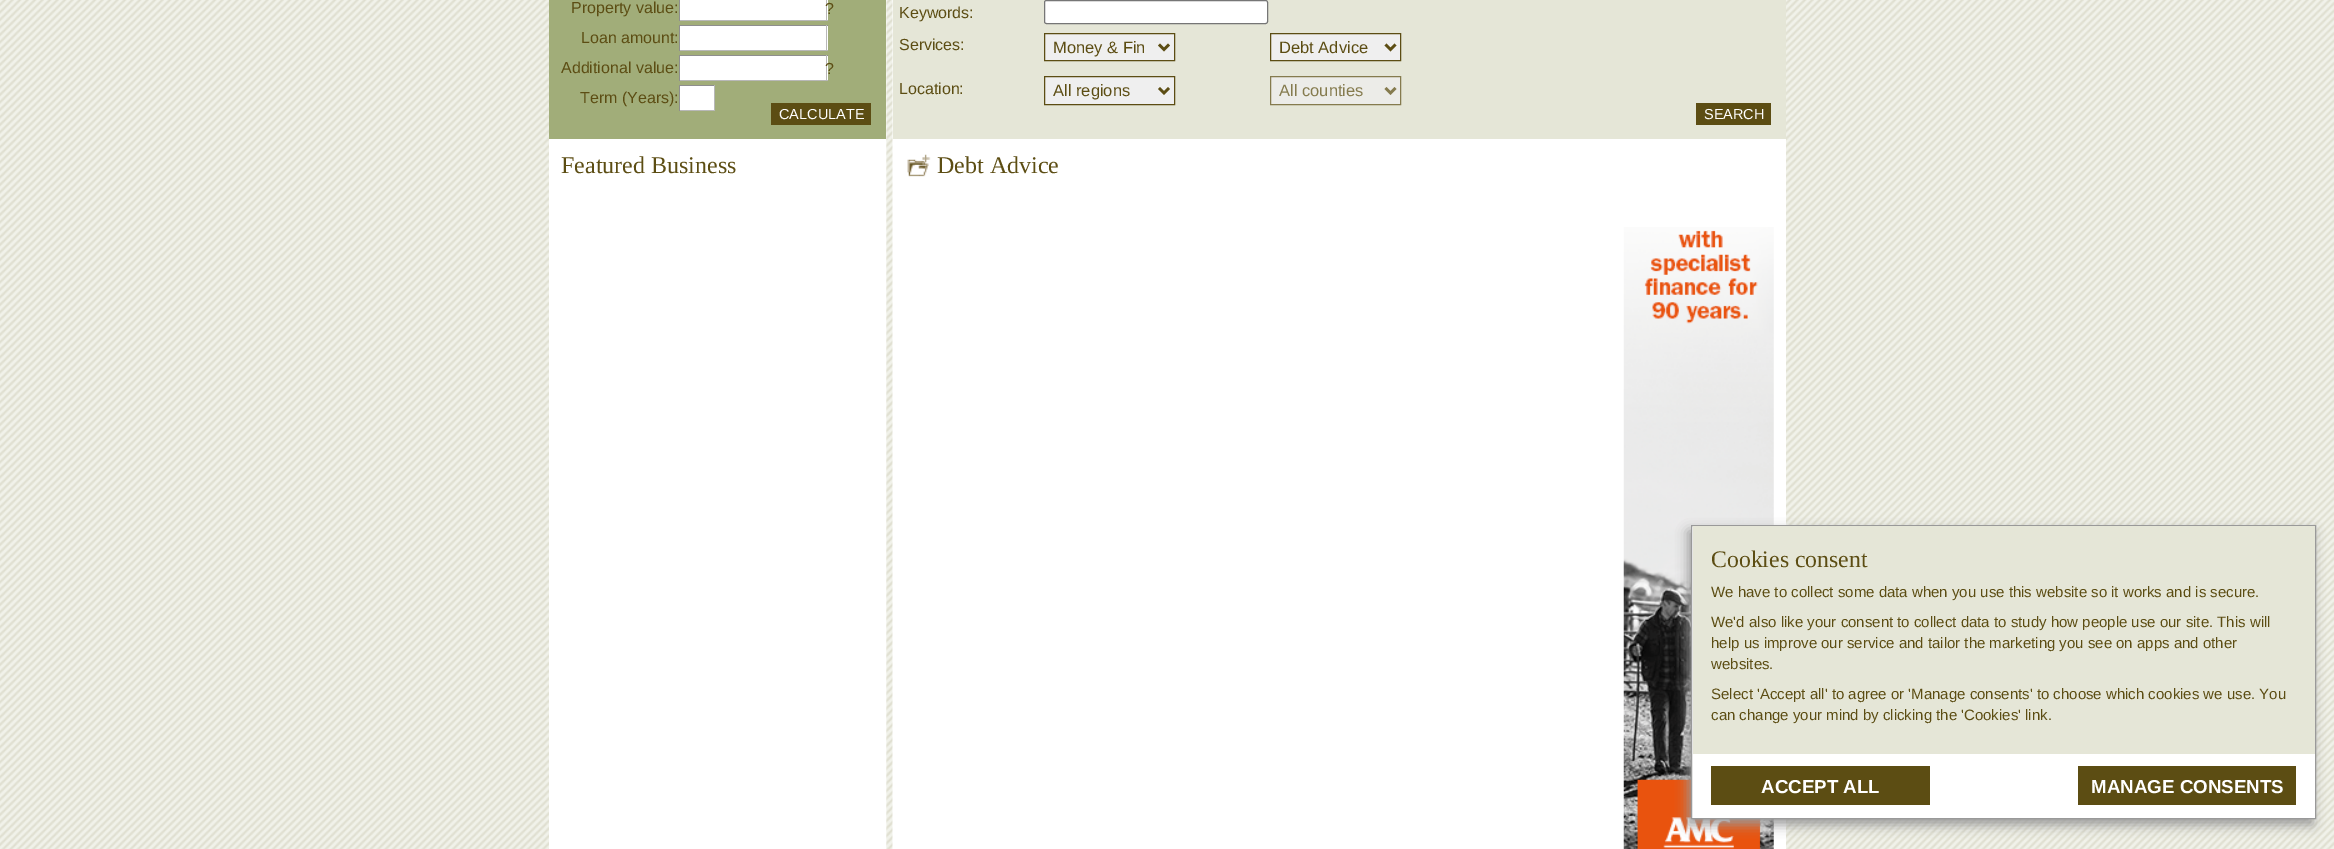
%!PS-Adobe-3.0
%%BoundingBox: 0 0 2334 849
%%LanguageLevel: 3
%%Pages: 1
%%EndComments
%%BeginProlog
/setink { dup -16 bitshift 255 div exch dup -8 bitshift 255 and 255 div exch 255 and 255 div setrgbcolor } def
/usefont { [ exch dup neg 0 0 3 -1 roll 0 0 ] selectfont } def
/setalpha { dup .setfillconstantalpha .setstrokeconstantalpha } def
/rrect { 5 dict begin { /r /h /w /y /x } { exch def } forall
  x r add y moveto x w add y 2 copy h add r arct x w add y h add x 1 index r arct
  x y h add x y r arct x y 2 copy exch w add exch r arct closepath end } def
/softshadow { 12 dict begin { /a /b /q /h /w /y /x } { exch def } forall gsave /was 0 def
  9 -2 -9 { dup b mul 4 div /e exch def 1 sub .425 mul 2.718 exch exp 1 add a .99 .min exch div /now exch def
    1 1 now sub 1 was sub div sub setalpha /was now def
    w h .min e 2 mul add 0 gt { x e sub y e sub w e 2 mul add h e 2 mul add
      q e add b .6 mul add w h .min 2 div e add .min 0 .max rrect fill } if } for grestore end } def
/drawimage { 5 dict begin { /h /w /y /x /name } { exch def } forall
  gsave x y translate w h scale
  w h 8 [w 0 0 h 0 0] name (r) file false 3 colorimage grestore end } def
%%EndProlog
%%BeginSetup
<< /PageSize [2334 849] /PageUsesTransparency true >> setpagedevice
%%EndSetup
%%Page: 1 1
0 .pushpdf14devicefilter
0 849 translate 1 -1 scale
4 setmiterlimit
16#FFFFFF setink
0 0 2334 849 rectfill
(img1.raw) 0 0 2334 849 drawimage
(img2.raw) 549 0 1237 849 drawimage
16#A1AD79 setink
549 0 337 139 rectfill
/LiberationSans-Regular 16 usefont
16#5C4D13 setink
571 13 moveto (Property value:) show
[
    [680 0 148 20 16#FFFFFF]
    [826 0 1 21 16#B8B8B8]
    [679 20 149 1 16#B8B8B8]
    [679 0 1 21 16#8E8E8E]
] { aload pop setink rectfill } forall
16#5C4D13 setink
825 14 moveto (?) show
581 43 moveto (Loan amount:) show
[
    [680 26 148 24 16#FFFFFF]
    [679 25 149 1 16#8E8E8E]
    [826 25 1 26 16#B8B8B8]
    [679 50 149 1 16#B8B8B8]
    [679 25 1 26 16#8E8E8E]
] { aload pop setink rectfill } forall
16#5C4D13 setink
561 73 moveto (Additional value:) show
[
    [680 56 148 24 16#FFFFFF]
    [679 55 149 1 16#8E8E8E]
    [826 55 1 26 16#B8B8B8]
    [679 80 149 1 16#B8B8B8]
    [679 55 1 26 16#8E8E8E]
] { aload pop setink rectfill } forall
16#5C4D13 setink
825 74 moveto (?) show
580 103 moveto (Term \(Years\):) show
[
    [680 86 34 24 16#FFFFFF]
    [679 85 36 1 16#8E8E8E]
    [714 85 1 26 16#B8B8B8]
    [679 110 36 1 16#B8B8B8]
    [679 85 1 26 16#8E8E8E]
    [771 103 100 22 16#5C4D13]
] { aload pop setink rectfill } forall
/LiberationSans-Regular 14.5 usefont
16#FFFFFF setink
779 119 moveto (CALCULATE) show
/LiberationSerif-Regular 24 usefont
16#5C4D13 setink
561 173 moveto (Featured Business) show
16#E5E6D7 setink
893 0 893 139 rectfill
/LiberationSans-Regular 16 usefont
16#5C4D13 setink
899 18 moveto (Keywords:) show
16#FFFFFF setink
1044.5 0.5 223 23 2 rrect gsave fill grestore
16#767676 setink
stroke
16#5C4D13 setink
899 50 moveto (Services:) show
16#EFEFEF setink
1044.5 33.5 moveto 1174.5 33.5 lineto 1174.5 60.5 lineto 1044.5 60.5 lineto closepath gsave fill grestore
16#5C4D13 setink
stroke
2.5 setlinewidth
1159 44.5 moveto 1164 49.5 lineto 1169 44.5 lineto stroke
/LiberationSans-Regular 16.5 usefont
1053 53 moveto (Money & Fin) show
16#EFEFEF setink
1270.5 33.5 moveto 1400.5 33.5 lineto 1400.5 60.5 lineto 1270.5 60.5 lineto closepath gsave fill grestore
16#5C4D13 setink
1 setlinewidth
stroke
2.5 setlinewidth
1385.5 44.5 moveto 1390.5 49.5 lineto 1395.5 44.5 lineto stroke
1279 53 moveto (Debt Advice) show
/LiberationSans-Regular 16 usefont
899 94 moveto (Location:) show
16#EFEFEF setink
1044.5 76.5 moveto 1174.5 76.5 lineto 1174.5 104.5 lineto 1044.5 104.5 lineto closepath gsave fill grestore
16#5C4D13 setink
1 setlinewidth
stroke
2.5 setlinewidth
1159 88 moveto 1164 93 lineto 1169 88 lineto stroke
/LiberationSans-Regular 16.5 usefont
1053 96 moveto (All regions) show
16#ECECE8 setink
1270.5 76.5 moveto 1400.5 76.5 lineto 1400.5 104.5 lineto 1270.5 104.5 lineto closepath gsave fill grestore
16#857B4E setink
1 setlinewidth
stroke
2.5 setlinewidth
1385.5 88 moveto 1390.5 93 lineto 1395.5 88 lineto stroke
1279 96 moveto (All counties) show
16#5C4D13 setink
1696 103 75 22 rectfill
/LiberationSans-Regular 14.5 usefont
16#FFFFFF setink
1704 119 moveto (SEARCH) show
(img3.raw) 907 154 24 23 drawimage
/LiberationSerif-Regular 24 usefont
16#5C4D13 setink
937 173 moveto (Debt Advice) show
(img4.raw) 1623 227 151 622 drawimage
16#999999 setink
1688 531 625 294 0 6 1 softshadow
16#FFFFFF setink
1691.5 525.5 moveto 2315.5 525.5 lineto 2315.5 818.5 lineto 1691.5 818.5 lineto closepath gsave fill grestore
16#999999 setink
1 setlinewidth
stroke
16#E5E6D7 setink
1693 526 622 228 rectfill
/LiberationSerif-Regular 23.75 usefont
16#5C4D13 setink
1711 567 moveto (Cookies consent) show
/LiberationSans-Regular 15 usefont
[
    [(We have to collect some data when you use this website so it works and is secure.) 1711 597]
    [(We'd also like your consent to collect data to study how people use our site. This will) 1711 627]
    [(help us improve our service and tailor the marketing you see on apps and other) 1711 648]
    [(websites.) 1711 669]
    [(Select 'Accept all' to agree or 'Manage consents' to choose which cookies we use. You) 1711 699]
    [(can change your mind by clicking the 'Cookies' link.) 1711 720]
] { aload pop moveto show } forall
1711 766 219 39 rectfill
/LiberationSans-Bold 18.75 usefont
16#FFFFFF setink
1761 793 moveto (ACCEPT ALL) show
16#5C4D13 setink
2078 766 218 39 rectfill
16#FFFFFF setink
2091 793 moveto (MANAGE CONSENTS) show
.poppdf14devicefilter showpage
%%EOF
